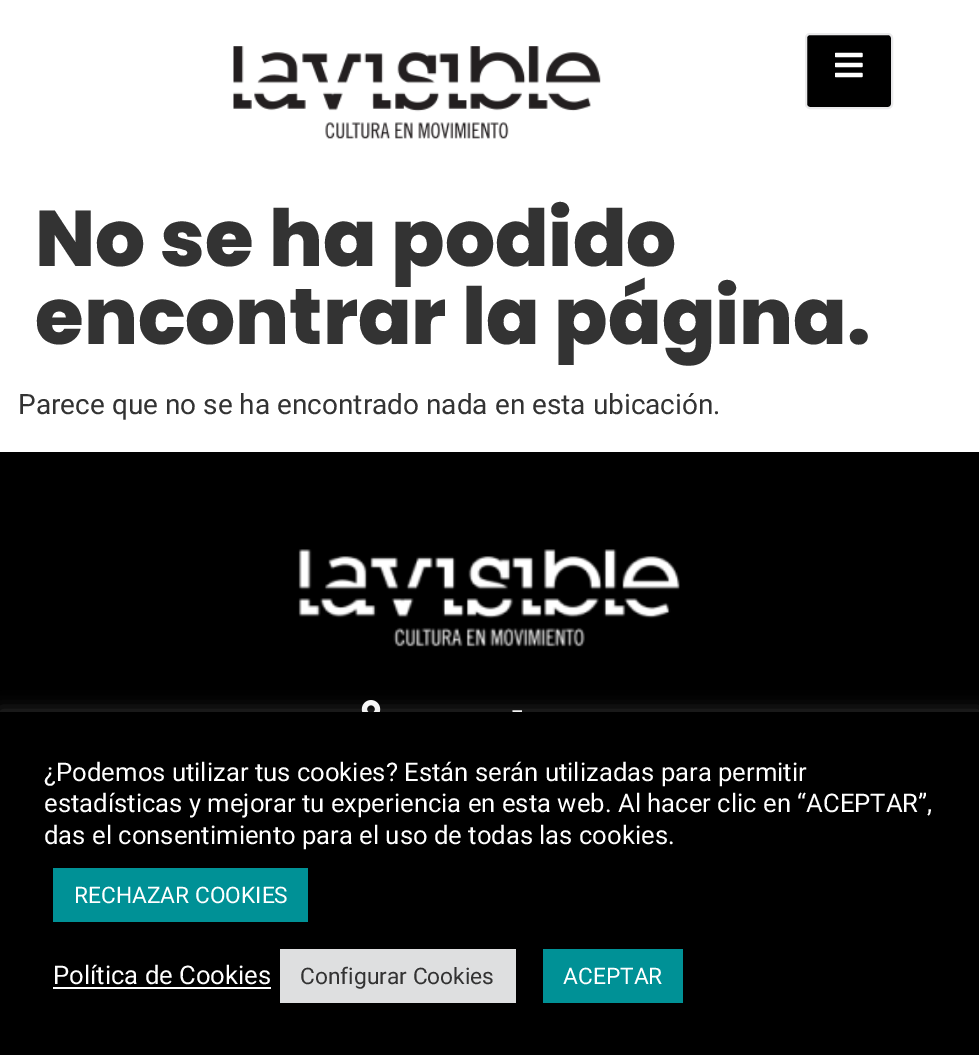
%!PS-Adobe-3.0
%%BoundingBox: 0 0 979 1055
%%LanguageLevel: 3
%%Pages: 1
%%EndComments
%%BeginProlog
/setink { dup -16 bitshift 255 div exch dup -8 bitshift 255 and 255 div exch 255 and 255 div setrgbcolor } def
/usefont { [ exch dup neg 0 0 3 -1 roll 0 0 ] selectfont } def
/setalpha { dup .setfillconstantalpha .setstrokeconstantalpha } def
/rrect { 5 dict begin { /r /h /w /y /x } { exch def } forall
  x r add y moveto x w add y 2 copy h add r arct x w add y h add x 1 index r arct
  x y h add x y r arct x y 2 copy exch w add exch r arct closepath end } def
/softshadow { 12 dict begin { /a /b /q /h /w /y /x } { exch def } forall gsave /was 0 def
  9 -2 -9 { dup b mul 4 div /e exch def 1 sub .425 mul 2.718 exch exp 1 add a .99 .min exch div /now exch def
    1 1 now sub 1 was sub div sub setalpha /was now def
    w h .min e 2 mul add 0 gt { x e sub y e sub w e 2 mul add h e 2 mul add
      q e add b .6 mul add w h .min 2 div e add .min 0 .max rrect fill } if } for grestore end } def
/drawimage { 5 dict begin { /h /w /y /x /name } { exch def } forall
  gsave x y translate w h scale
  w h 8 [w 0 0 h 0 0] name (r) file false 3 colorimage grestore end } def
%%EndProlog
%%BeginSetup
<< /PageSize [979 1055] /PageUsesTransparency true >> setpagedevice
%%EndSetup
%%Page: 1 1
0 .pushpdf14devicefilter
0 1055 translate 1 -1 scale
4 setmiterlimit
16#FFFFFF setink
0 0 979 1055 rectfill
(img1.raw) 233 46 368 93 drawimage
16#000000 setink
806 34 86 74 4 rrect gsave fill grestore
16#EAEAEB setink
2 setlinewidth
stroke
(img2.raw) 835 52 28 26 drawimage
/Poppins-ExtraBold 78.75 usefont
16#333333 setink
35 266 moveto (No se ha podido) show
35 344 moveto (encontrar la página.) show
/Roboto-Regular 28 usefont
18 414 moveto (Parece que no se ha encontrado nada en esta ubicación.) show
16#000000 setink
0 452 979 260 rectfill
(img3.raw) 298 549 382 98 drawimage
(img4.raw) 361 700 20 12 drawimage
/Poppins-Regular 24 usefont
16#FFFFFF setink
511 720 moveto (-) show
16#ACABAB setink
0 711 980 343 0 9 0.3 softshadow
16#000000 setink
0 712 979 343 rectfill
/Roboto-Regular 25.65 usefont
16#FFFFFF setink
[
    [(¿Podemos utilizar tus cookies? Están serán utilizadas para permitir) 44 781]
    [(estadísticas y mejorar tu experiencia en esta web. Al hacer clic en “ACEPTAR”,) 44 812]
    [(das el consentimiento para el uso de todas las cookies.) 44 844]
] { aload pop moveto show } forall
16#009196 setink
53 868 255 54 rectfill
/Roboto-Regular 22.75 usefont
16#FFFFFF setink
74 903 moveto (RECHAZAR COOKIES) show
/Roboto-Regular 25.65 usefont
53 984 moveto (Política de Cookies) show
53 987 218 2 rectfill
16#DEDFE0 setink
280 949 236 54 rectfill
/Roboto-Regular 22.75 usefont
16#333333 setink
300 984 moveto (Configurar Cookies) show
16#009196 setink
543 949 140 54 rectfill
16#FFFFFF setink
563 984 moveto (ACEPTAR) show
.poppdf14devicefilter showpage
%%EOF
